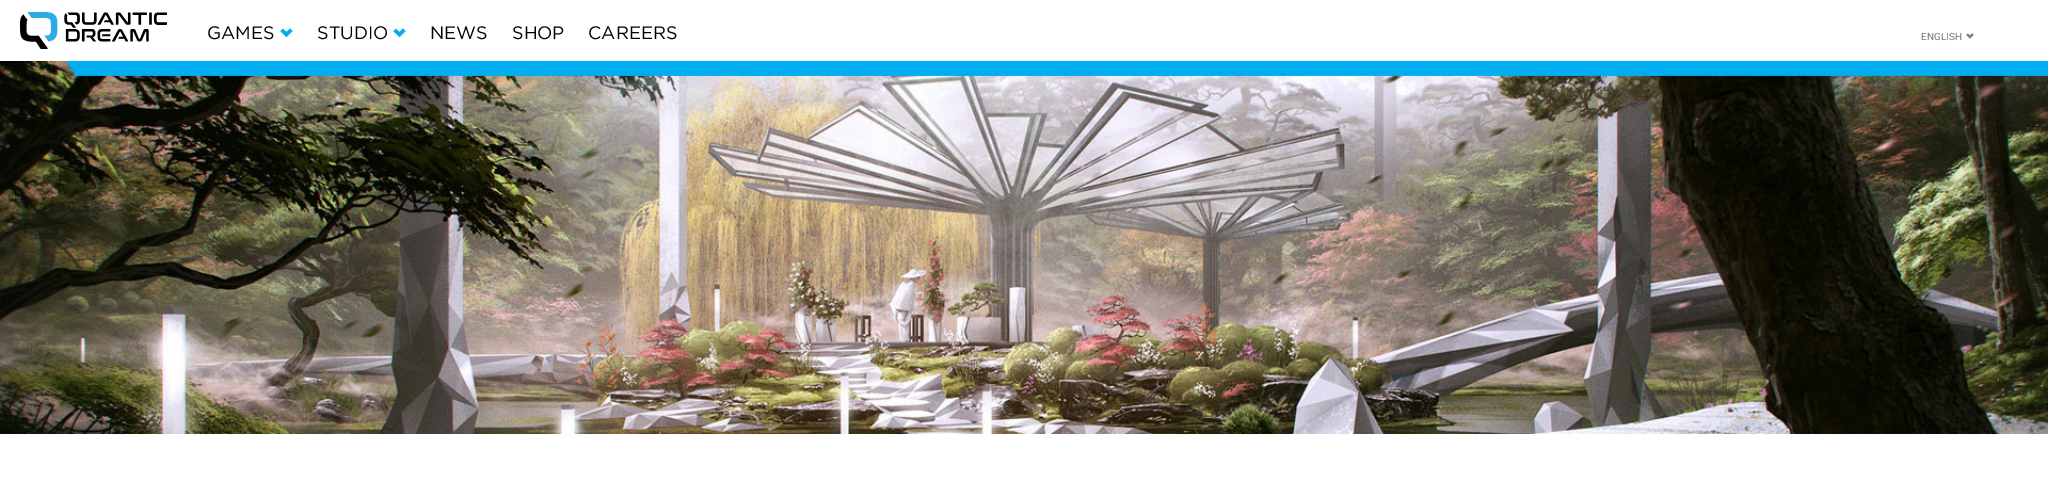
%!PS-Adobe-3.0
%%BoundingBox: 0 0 2048 481
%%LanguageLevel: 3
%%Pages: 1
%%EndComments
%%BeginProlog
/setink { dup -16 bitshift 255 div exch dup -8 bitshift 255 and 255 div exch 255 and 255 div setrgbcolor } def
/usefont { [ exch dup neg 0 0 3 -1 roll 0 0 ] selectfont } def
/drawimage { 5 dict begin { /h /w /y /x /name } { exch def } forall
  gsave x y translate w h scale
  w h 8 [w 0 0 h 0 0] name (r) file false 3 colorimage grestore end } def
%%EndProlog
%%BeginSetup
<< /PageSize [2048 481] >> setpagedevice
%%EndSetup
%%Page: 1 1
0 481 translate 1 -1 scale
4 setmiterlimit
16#FFFFFF setink
0 0 2048 481 rectfill
(img1.raw) 20 12 147 37 drawimage
/Gotham-Regular 18 usefont
16#000000 setink
207 39 moveto (GAMES) show
(img2.raw) 280 28 13 9 drawimage
317 39 moveto (STUDIO) show
(img2.raw) 393 28 13 9 drawimage
[
    [(NEWS) 430 39]
    [(SHOP) 512 39]
    [(CAREERS) 588 39]
] { aload pop moveto show } forall
/Roboto-Regular 10 usefont
16#797979 setink
1921 40 moveto (ENGLISH) show
(img3.raw) 1966 33 8 6 drawimage
(img4.raw) 0 61 2048 373 drawimage
showpage
%%EOF
